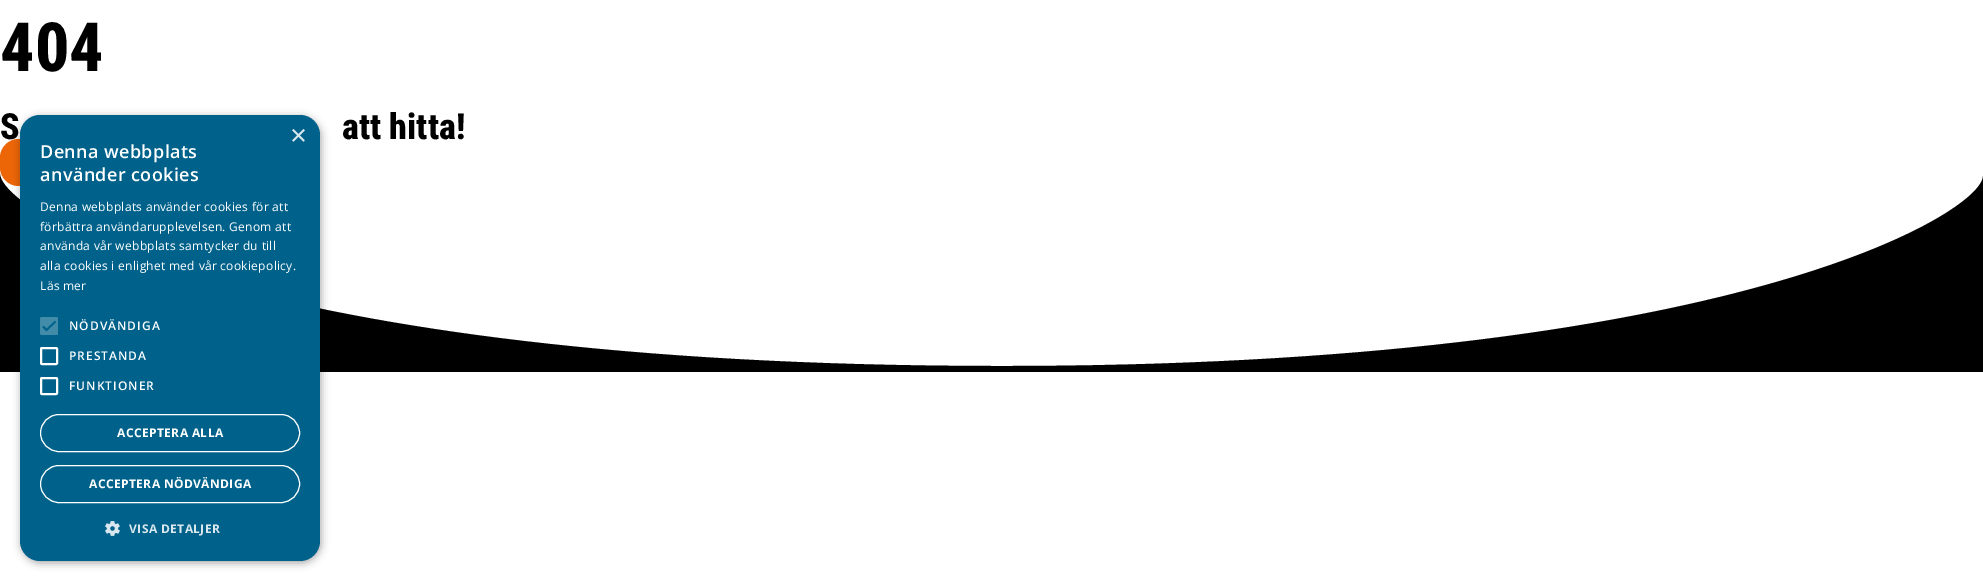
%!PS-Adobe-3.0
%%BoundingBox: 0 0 1983 581
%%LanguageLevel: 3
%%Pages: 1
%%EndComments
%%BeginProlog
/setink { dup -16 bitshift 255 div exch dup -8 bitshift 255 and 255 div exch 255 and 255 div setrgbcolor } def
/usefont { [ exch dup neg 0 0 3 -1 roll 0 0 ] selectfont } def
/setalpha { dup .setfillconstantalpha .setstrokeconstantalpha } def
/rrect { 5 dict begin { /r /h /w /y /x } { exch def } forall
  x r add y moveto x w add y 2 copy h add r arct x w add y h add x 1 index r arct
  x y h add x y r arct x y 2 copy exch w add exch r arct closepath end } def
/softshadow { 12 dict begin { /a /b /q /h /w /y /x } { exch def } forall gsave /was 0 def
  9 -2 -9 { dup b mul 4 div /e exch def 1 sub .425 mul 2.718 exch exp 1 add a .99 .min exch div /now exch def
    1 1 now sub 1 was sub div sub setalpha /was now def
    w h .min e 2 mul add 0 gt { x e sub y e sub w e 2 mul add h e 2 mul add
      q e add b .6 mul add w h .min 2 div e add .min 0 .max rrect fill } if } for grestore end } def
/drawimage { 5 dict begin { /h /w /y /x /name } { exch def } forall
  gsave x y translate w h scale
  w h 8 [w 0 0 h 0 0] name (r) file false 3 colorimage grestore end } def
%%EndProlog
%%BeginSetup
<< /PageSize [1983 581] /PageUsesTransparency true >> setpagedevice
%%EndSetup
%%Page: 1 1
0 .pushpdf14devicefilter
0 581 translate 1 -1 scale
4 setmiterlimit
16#FFFFFF setink
0 0 1983 581 rectfill
/RobotoCondensed-ExtraBold 68 usefont
16#000000 setink
0 71 moveto (404) show
/RobotoCondensed-ExtraBold 36 usefont
0 139 moveto (S) show
342 139 moveto (att hitta!) show
16#EC6608 setink
18.5 139 moveto 37 139 lineto 37 186 lineto 18.5 186 lineto 8.5 186 0 177.5 0 167.5 curveto 0 157.5 lineto 0 147.5 8.5 139 18.5 139 curveto closepath fill
16#000000 setink
991 366 moveto 251 365 2 213 0 174 curveto 0 372 lineto 1983 372 lineto 1983 176 lineto 1983 212 1732 368 991 366 curveto closepath fill
21 117 300 446 20 4 0.35 softshadow
16#00628B setink
20 115 300 446 20 rrect fill
/LiberationSans-Regular 29 usefont
16#D9E7EE setink
290 145 moveto (×) show
/OpenSans-SemiBold 18 usefont
16#FFFFFF setink
40 158 moveto 0.4 0 (Denna webbplats) ashow
40 181 moveto 0.4 0 (använder cookies) ashow
/OpenSans-Regular 12 usefont
40 211 moveto 0.3 0 (Denna webbplats använder cookies för att) ashow
40 231 moveto 0.3 0 (förbättra användarupplevelsen. Genom att) ashow
40 250 moveto 0.3 0 (använda vår webbplats samtycker du till) ashow
40 270 moveto 0.3 0 (alla cookies i enlighet med vår cookiepolicy.) ashow
40 290 moveto 0.3 0 (Läs mer) ashow
16#428BA9 setink
40 317 18 18 2 rrect fill
16#00628B setink
1.8 setlinewidth
43 326.5 moveto 46.5 330 lineto 55.5 321.5 lineto stroke
/OpenSans-SemiBold 12 usefont
16#FFFFFF setink
69 330 moveto 1 0 (NÖDVÄNDIGA) ashow
2 setlinewidth
41 348 16 16 1 rrect stroke
69 360 moveto 1 0 (PRESTANDA) ashow
41 378 16 16 1 rrect stroke
69 390 moveto 1 0 (FUNKTIONER) ashow
1 setlinewidth
40.5 414.5 259 37 18.5 rrect stroke
/OpenSans-Bold 12 usefont
117 437 moveto 0.4 0 (ACCEPTERA ALLA) ashow
40.5 465.5 259 37 18.5 rrect stroke
89 488 moveto 0.4 0 (ACCEPTERA NÖDVÄNDIGA) ashow
(img1.raw) 105 521 15 15 drawimage
16#D9E7EE setink
129 533 moveto 0.4 0 (VISA DETALJER) ashow
.poppdf14devicefilter showpage
%%EOF
